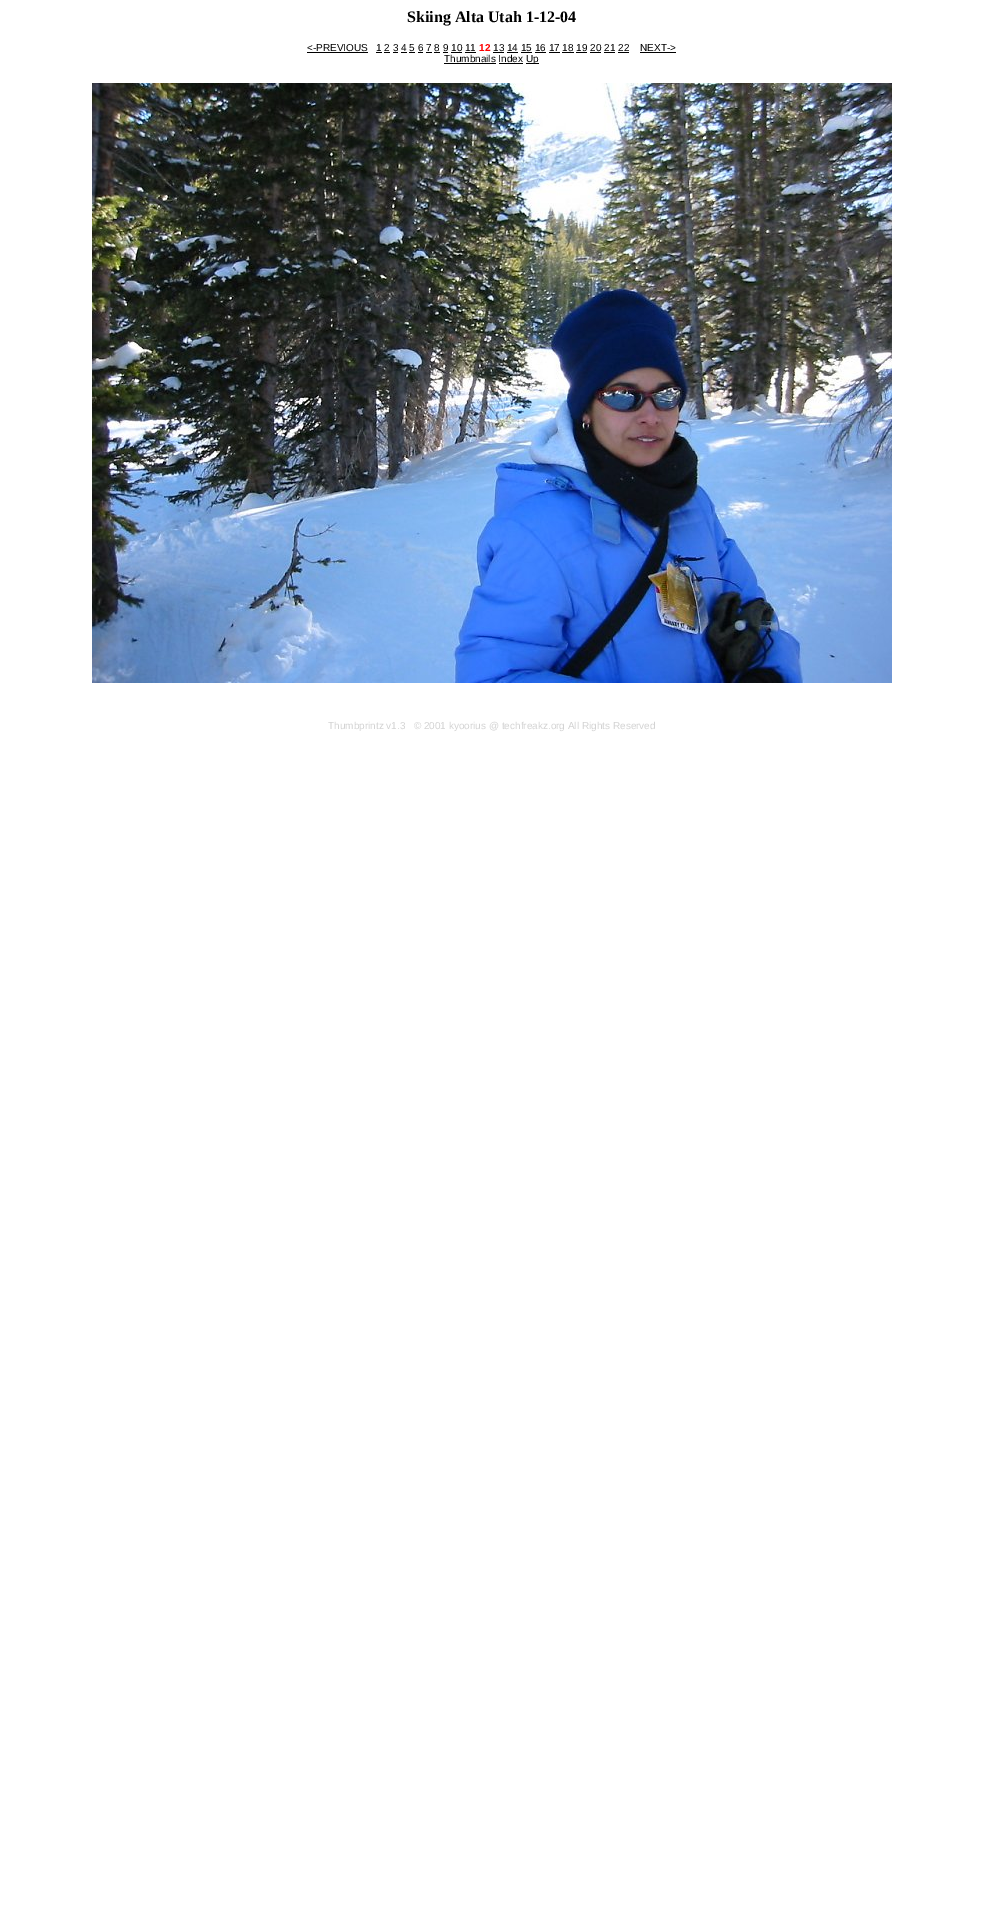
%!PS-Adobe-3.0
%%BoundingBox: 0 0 983 1913
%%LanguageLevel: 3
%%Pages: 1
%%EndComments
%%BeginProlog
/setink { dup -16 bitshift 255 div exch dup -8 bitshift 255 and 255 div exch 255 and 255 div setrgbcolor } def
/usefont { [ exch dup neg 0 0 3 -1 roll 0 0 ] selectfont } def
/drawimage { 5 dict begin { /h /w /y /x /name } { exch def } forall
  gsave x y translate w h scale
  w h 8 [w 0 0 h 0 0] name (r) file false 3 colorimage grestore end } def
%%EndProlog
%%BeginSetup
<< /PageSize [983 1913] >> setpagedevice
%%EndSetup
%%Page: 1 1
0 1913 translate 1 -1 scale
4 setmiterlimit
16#FFFFFF setink
0 0 983 1913 rectfill
/LiberationSerif-Bold 16 usefont
16#000000 setink
407 22 moveto (Skiing Alta Utah 1-12-04) show
/LiberationSans-Regular 10 usefont
307 51 moveto (<-PREVIOUS) show
307 52 61 1 rectfill
376 51 moveto (1 2 3 4 5 6 7 8 9 10 11) show
[
    [376 52 6 1 16#000000]
    [384 52 6 1 16#000000]
    [393 52 5 1 16#000000]
    [401 52 6 1 16#000000]
    [409 52 6 1 16#000000]
    [418 52 5 1 16#000000]
    [426 52 6 1 16#000000]
    [434 52 6 1 16#000000]
    [443 52 5 1 16#000000]
    [451 52 11 1 16#000000]
    [465 52 11 1 16#000000]
] { aload pop setink rectfill } forall
/LiberationSans-Bold 10 usefont
16#FF0000 setink
479 51 moveto (12) show
/LiberationSans-Regular 10 usefont
16#000000 setink
493 51 moveto (13 14 15 16 17 18 19 20 21 22) show
[
    [493 52 11 1 16#000000]
    [507 52 11 1 16#000000]
    [521 52 11 1 16#000000]
    [535 52 11 1 16#000000]
    [549 52 11 1 16#000000]
    [562 52 12 1 16#000000]
    [576 52 11 1 16#000000]
    [590 52 11 1 16#000000]
    [604 52 11 1 16#000000]
    [618 52 11 1 16#000000]
] { aload pop setink rectfill } forall
640 51 moveto (NEXT->) show
640 52 36 1 rectfill
444 62 moveto (Thumbnails Index) show
[
    [444 63 52 1 16#000000]
    [499 63 24 1 16#000000]
    [526 63 13 1 16#000000]
] { aload pop setink rectfill } forall
526 62 moveto (Up) show
(img1.raw) 92 83 800 600 drawimage
16#D3D3D3 setink
328 729 moveto (Thumbprintz v1.3   © 2001 kyoorius @ techfreakz.org All Rights Reserved) show
showpage
%%EOF
